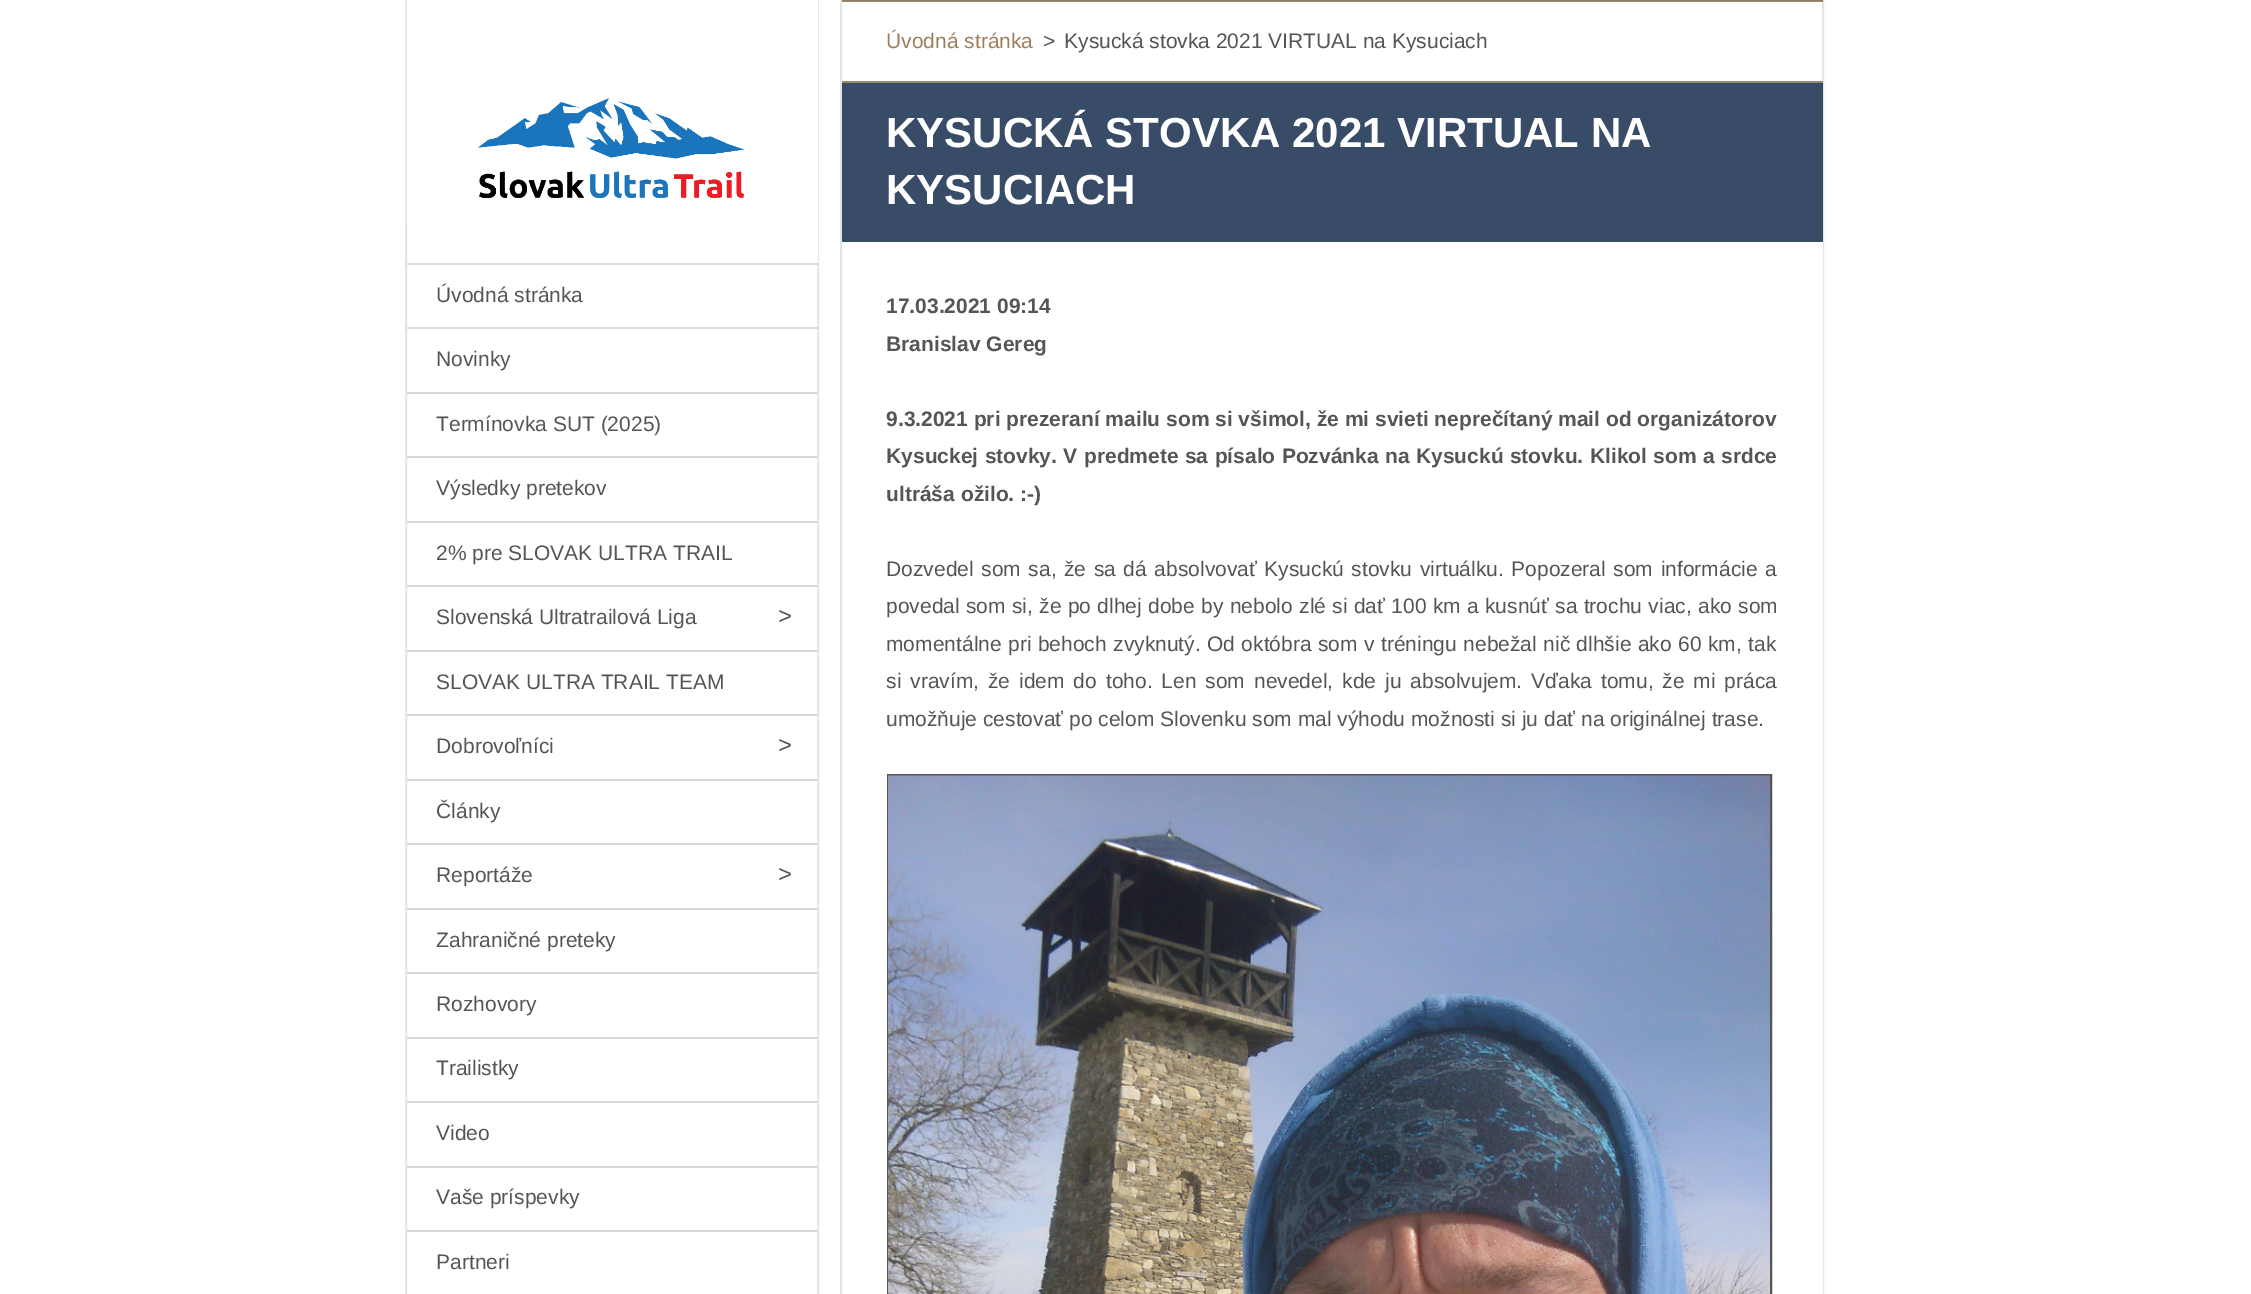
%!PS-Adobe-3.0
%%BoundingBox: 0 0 2251 1294
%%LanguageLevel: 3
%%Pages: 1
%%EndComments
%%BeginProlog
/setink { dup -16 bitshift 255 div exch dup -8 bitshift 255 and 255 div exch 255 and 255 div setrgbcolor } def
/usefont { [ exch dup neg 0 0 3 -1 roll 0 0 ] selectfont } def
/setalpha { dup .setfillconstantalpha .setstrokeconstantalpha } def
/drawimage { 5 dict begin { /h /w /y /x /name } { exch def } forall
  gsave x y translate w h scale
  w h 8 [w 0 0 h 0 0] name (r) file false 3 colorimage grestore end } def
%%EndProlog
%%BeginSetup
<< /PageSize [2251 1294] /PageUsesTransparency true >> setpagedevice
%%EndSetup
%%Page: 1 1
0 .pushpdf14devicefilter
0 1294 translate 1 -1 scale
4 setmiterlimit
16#FFFFFF setink
0 0 2251 1294 rectfill
16#E6E6E6 setink
2 setlinewidth
406 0 412 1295 rectstroke
16#FFFFFF setink
407 0 411 225 rectfill
(img1.raw) 478 98 266 100 drawimage
817 225 1 38 rectfill
16#D9D9D9 setink
407 263 411 2 rectfill
/LiberationSans-Regular 21 usefont
16#555555 setink
436 302 moveto (Úvodná stránka) show
16#D9D9D9 setink
407 327 411 2 rectfill
16#555555 setink
436 366 moveto (Novinky) show
16#D9D9D9 setink
407 392 411 2 rectfill
16#555555 setink
436 431 moveto (Termínovka SUT \(2025\)) show
16#D9D9D9 setink
407 456 411 2 rectfill
16#555555 setink
436 495 moveto (Výsledky pretekov) show
16#D9D9D9 setink
407 521 411 2 rectfill
16#555555 setink
436 560 moveto (2% pre SLOVAK ULTRA TRAIL) show
16#D9D9D9 setink
407 585 411 2 rectfill
16#555555 setink
436 624 moveto (Slovenská Ultratrailová Liga) show
/LiberationSans-Regular 24 usefont
778 624 moveto (>) show
16#D9D9D9 setink
407 650 411 2 rectfill
/LiberationSans-Regular 21 usefont
16#555555 setink
436 689 moveto (SLOVAK ULTRA TRAIL TEAM) show
16#D9D9D9 setink
407 714 411 2 rectfill
16#555555 setink
436 753 moveto (Dobrovoľníci) show
/LiberationSans-Regular 24 usefont
778 753 moveto (>) show
16#D9D9D9 setink
407 779 411 2 rectfill
/LiberationSans-Regular 21 usefont
16#555555 setink
436 818 moveto (Články) show
16#D9D9D9 setink
407 843 411 2 rectfill
16#555555 setink
436 882 moveto (Reportáže) show
/LiberationSans-Regular 24 usefont
778 882 moveto (>) show
16#D9D9D9 setink
407 908 411 2 rectfill
/LiberationSans-Regular 21 usefont
16#555555 setink
436 947 moveto (Zahraničné preteky) show
16#D9D9D9 setink
407 972 411 2 rectfill
16#555555 setink
436 1011 moveto (Rozhovory) show
16#D9D9D9 setink
407 1037 411 2 rectfill
16#555555 setink
436 1075 moveto (Trailistky) show
16#D9D9D9 setink
407 1101 411 2 rectfill
16#555555 setink
436 1140 moveto (Video) show
16#D9D9D9 setink
407 1166 411 2 rectfill
16#555555 setink
436 1204 moveto (Vaše príspevky) show
16#D9D9D9 setink
407 1230 411 2 rectfill
16#555555 setink
436 1269 moveto (Partneri) show
16#9D8B71 setink
842 0 981 2 rectfill
0.1 setalpha
16#000000 setink
841 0 982 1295 rectstroke
1 setalpha
16#9D7F5C setink
886 48 moveto (Úvodná stránka) show
16#555555 setink
1043 48 moveto (>) show
1064 48 moveto (Kysucká stovka 2021 VIRTUAL na Kysuciach) show
16#9D8B71 setink
842 81 981 2 rectfill
16#384C67 setink
842 83 981 159 rectfill
/LiberationSans-Bold 42 usefont
16#FFFFFF setink
886 147 moveto (KYSUCKÁ STOVKA 2021 VIRTUAL NA) show
886 204 moveto (KYSUCIACH) show
1822 242 1 1052 rectfill
/LiberationSans-Bold 21 usefont
16#555555 setink
[
    [(17.03.2021 09:14) 886 313]
    [(Branislav Gereg) 886 351]
    [(9.3.2021 pri prezeraní mailu som si všimol, že mi svieti neprečítaný mail od organizátorov) 886 426]
] { aload pop moveto show } forall
886 463 moveto 0.6 0 32 (Kysuckej stovky. V predmete sa písalo Pozvánka na Kysuckú stovku. Klikol som a srdce) widthshow
886 501 moveto (ultráša ožilo. :-\)) show
/LiberationSans-Regular 21 usefont
886 576 moveto 1.75 0 32 (Dozvedel som sa, že sa dá absolvovať Kysuckú stovku virtuálku. Popozeral som informácie a) widthshow
886 613 moveto 0.5 0 32 (povedal som si, že po dlhej dobe by nebolo zlé si dať 100 km a kusnúť sa trochu viac, ako som) widthshow
886 651 moveto 0.6 0 32 (momentálne pri behoch zvyknutý. Od októbra som v tréningu nebežal nič dlhšie ako 60 km, tak) widthshow
886 688 moveto 3.1 0 32 (si vravím, že idem do toho. Len som nevedel, kde ju absolvujem. Vďaka tomu, že mi práca) widthshow
886 726 moveto (umožňuje cestovať po celom Slovenku som mal výhodu možnosti si ju dať na originálnej trase.) show
888 775 883 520 rectstroke
(img2.raw) 888 775 882 519 drawimage
.poppdf14devicefilter showpage
%%EOF
